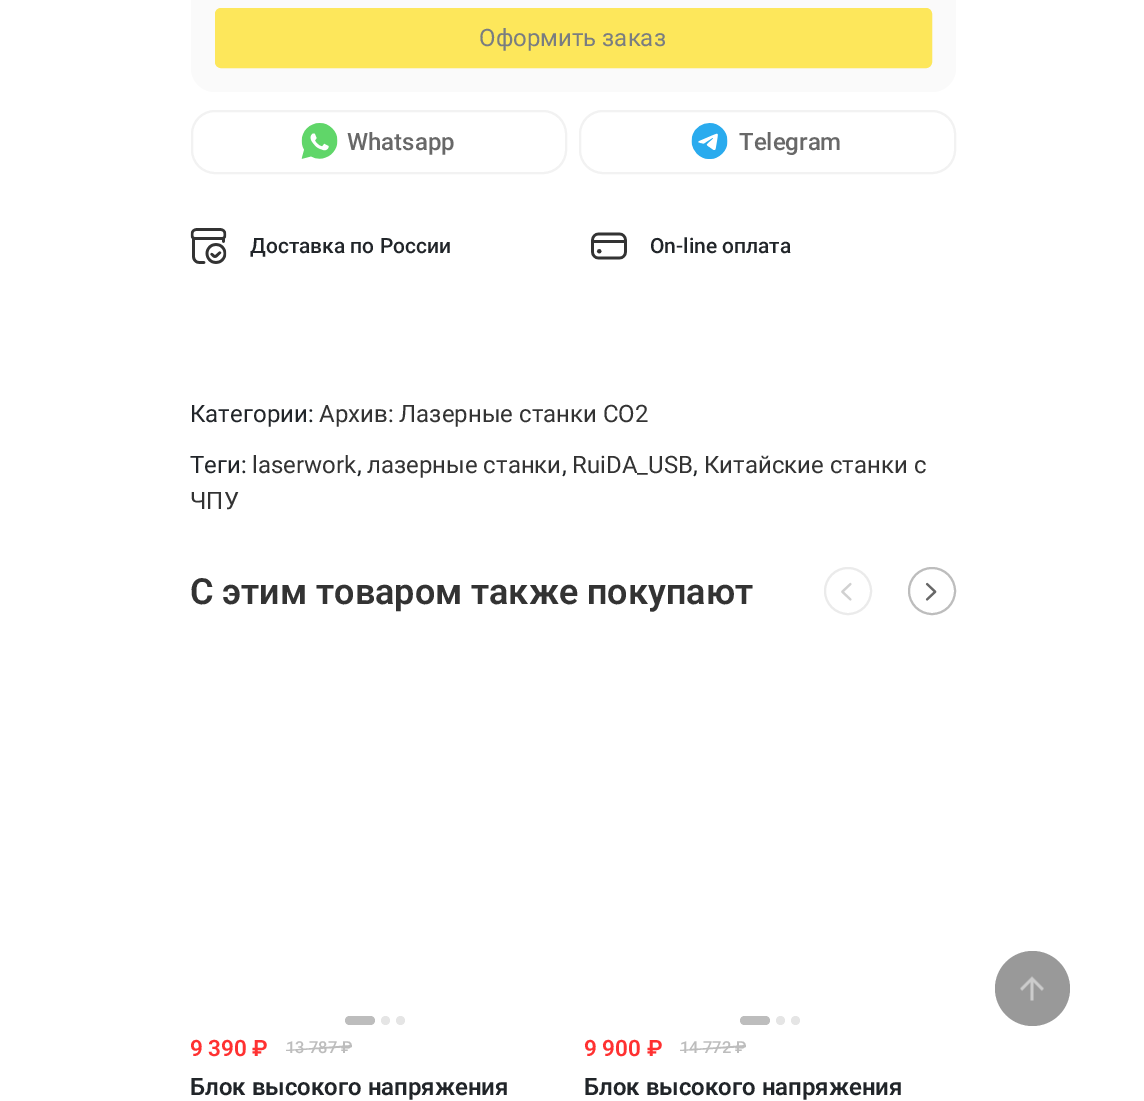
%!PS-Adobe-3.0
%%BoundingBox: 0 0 1144 1101
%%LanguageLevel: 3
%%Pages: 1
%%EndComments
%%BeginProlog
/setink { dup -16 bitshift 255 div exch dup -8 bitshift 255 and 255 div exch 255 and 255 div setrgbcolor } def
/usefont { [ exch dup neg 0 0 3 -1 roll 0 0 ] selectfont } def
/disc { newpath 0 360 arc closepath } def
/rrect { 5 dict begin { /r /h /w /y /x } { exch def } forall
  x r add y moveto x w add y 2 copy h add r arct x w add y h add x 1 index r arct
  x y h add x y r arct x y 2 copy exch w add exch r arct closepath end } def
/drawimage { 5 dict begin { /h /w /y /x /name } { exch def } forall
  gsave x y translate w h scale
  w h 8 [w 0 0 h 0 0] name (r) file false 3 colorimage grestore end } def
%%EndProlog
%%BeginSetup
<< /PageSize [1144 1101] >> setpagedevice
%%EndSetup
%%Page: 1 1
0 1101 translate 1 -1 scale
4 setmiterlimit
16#FFFFFF setink
0 0 1144 1101 rectfill
16#FAFAFA setink
191 -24 765 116 24 rrect fill
16#FDE75B setink
216 9 715 58 5 rrect gsave fill grestore
2 setlinewidth
stroke
/Roboto-Regular 24 usefont
16#797D81 setink
479 46 moveto (Оформить заказ) show
16#F2F2F2 setink
192 111 374 62 23 rrect stroke
(img1.raw) 301 123 37 36 drawimage
/Roboto-Medium 24 usefont
16#686868 setink
347 150 moveto (Whatsapp) show
16#F2F2F2 setink
580 111 375 62 23 rrect stroke
(img2.raw) 691 123 37 36 drawimage
16#686868 setink
739 150 moveto (Telegram) show
(img3.raw) 190 228 37 36 drawimage
/Roboto-Medium 21 usefont
16#212529 setink
250 253 moveto (Доставка по России) show
(img4.raw) 591 232 36 28 drawimage
650 253 moveto (On-line оплата) show
/Roboto-Regular 24 usefont
190 422 moveto (Категории:) show
16#333333 setink
319 422 moveto (Архив: Лазерные станки CO2) show
16#212529 setink
190 473 moveto (Теги:) show
16#333333 setink
252 473 moveto (laserwork) show
16#212529 setink
357 473 moveto (,) show
16#333333 setink
367 473 moveto (лазерные станки) show
16#212529 setink
562 473 moveto (,) show
16#333333 setink
572 473 moveto (RuiDA_USB) show
16#212529 setink
693 473 moveto (,) show
16#333333 setink
704 473 moveto (Китайские станки с) show
190 509 moveto (ЧПУ) show
/Roboto-SemiBold 36 usefont
190 604 moveto (C этим товаром также покупают) show
16#EBEBEB setink
848 591 23 disc stroke
(img5.raw) 841 582 11 19 drawimage
16#BDBDBD setink
932 591 23 disc stroke
(img6.raw) 925 582 12 19 drawimage
345 1016 30 9 4.5 rrect fill
16#E5E5E5 setink
385.5 1020.5 4.5 disc fill
400.5 1020.5 4.5 disc fill
gsave
191 1037 370 24 rectclip
/Roboto-SemiBold 22.5 usefont
16#FF3131 setink
190 1056 moveto (9 390) show
grestore
/Roboto-SemiBold 22.5 usefont
16#FF3131 setink
252 1056 moveto (₽) show
/Roboto-Medium 16.5 usefont
16#BDBDBD setink
286 1053 moveto (13 787 ₽) show
286 1050 moveto 352 1045 lineto 352 1047 lineto 286 1051 lineto closepath fill
/Roboto-SemiBold 24 usefont
16#212529 setink
190 1095 moveto (Блок высокого напряжения) show
16#BDBDBD setink
740 1016 30 9 4.5 rrect fill
16#E5E5E5 setink
780.5 1020.5 4.5 disc fill
795.5 1020.5 4.5 disc fill
/Roboto-SemiBold 22.5 usefont
16#FF3131 setink
584 1056 moveto (9 900 ₽) show
/Roboto-Medium 16.5 usefont
16#BDBDBD setink
680 1053 moveto (14 772 ₽) show
680 1050 moveto 746 1045 lineto 746 1047 lineto 680 1051 lineto closepath fill
/Roboto-SemiBold 24 usefont
16#212529 setink
584 1095 moveto (Блок высокого напряжения) show
16#999999 setink
1032.5 988.5 37.5 disc fill
(img7.raw) 1020 976 24 25 drawimage
showpage
%%EOF
